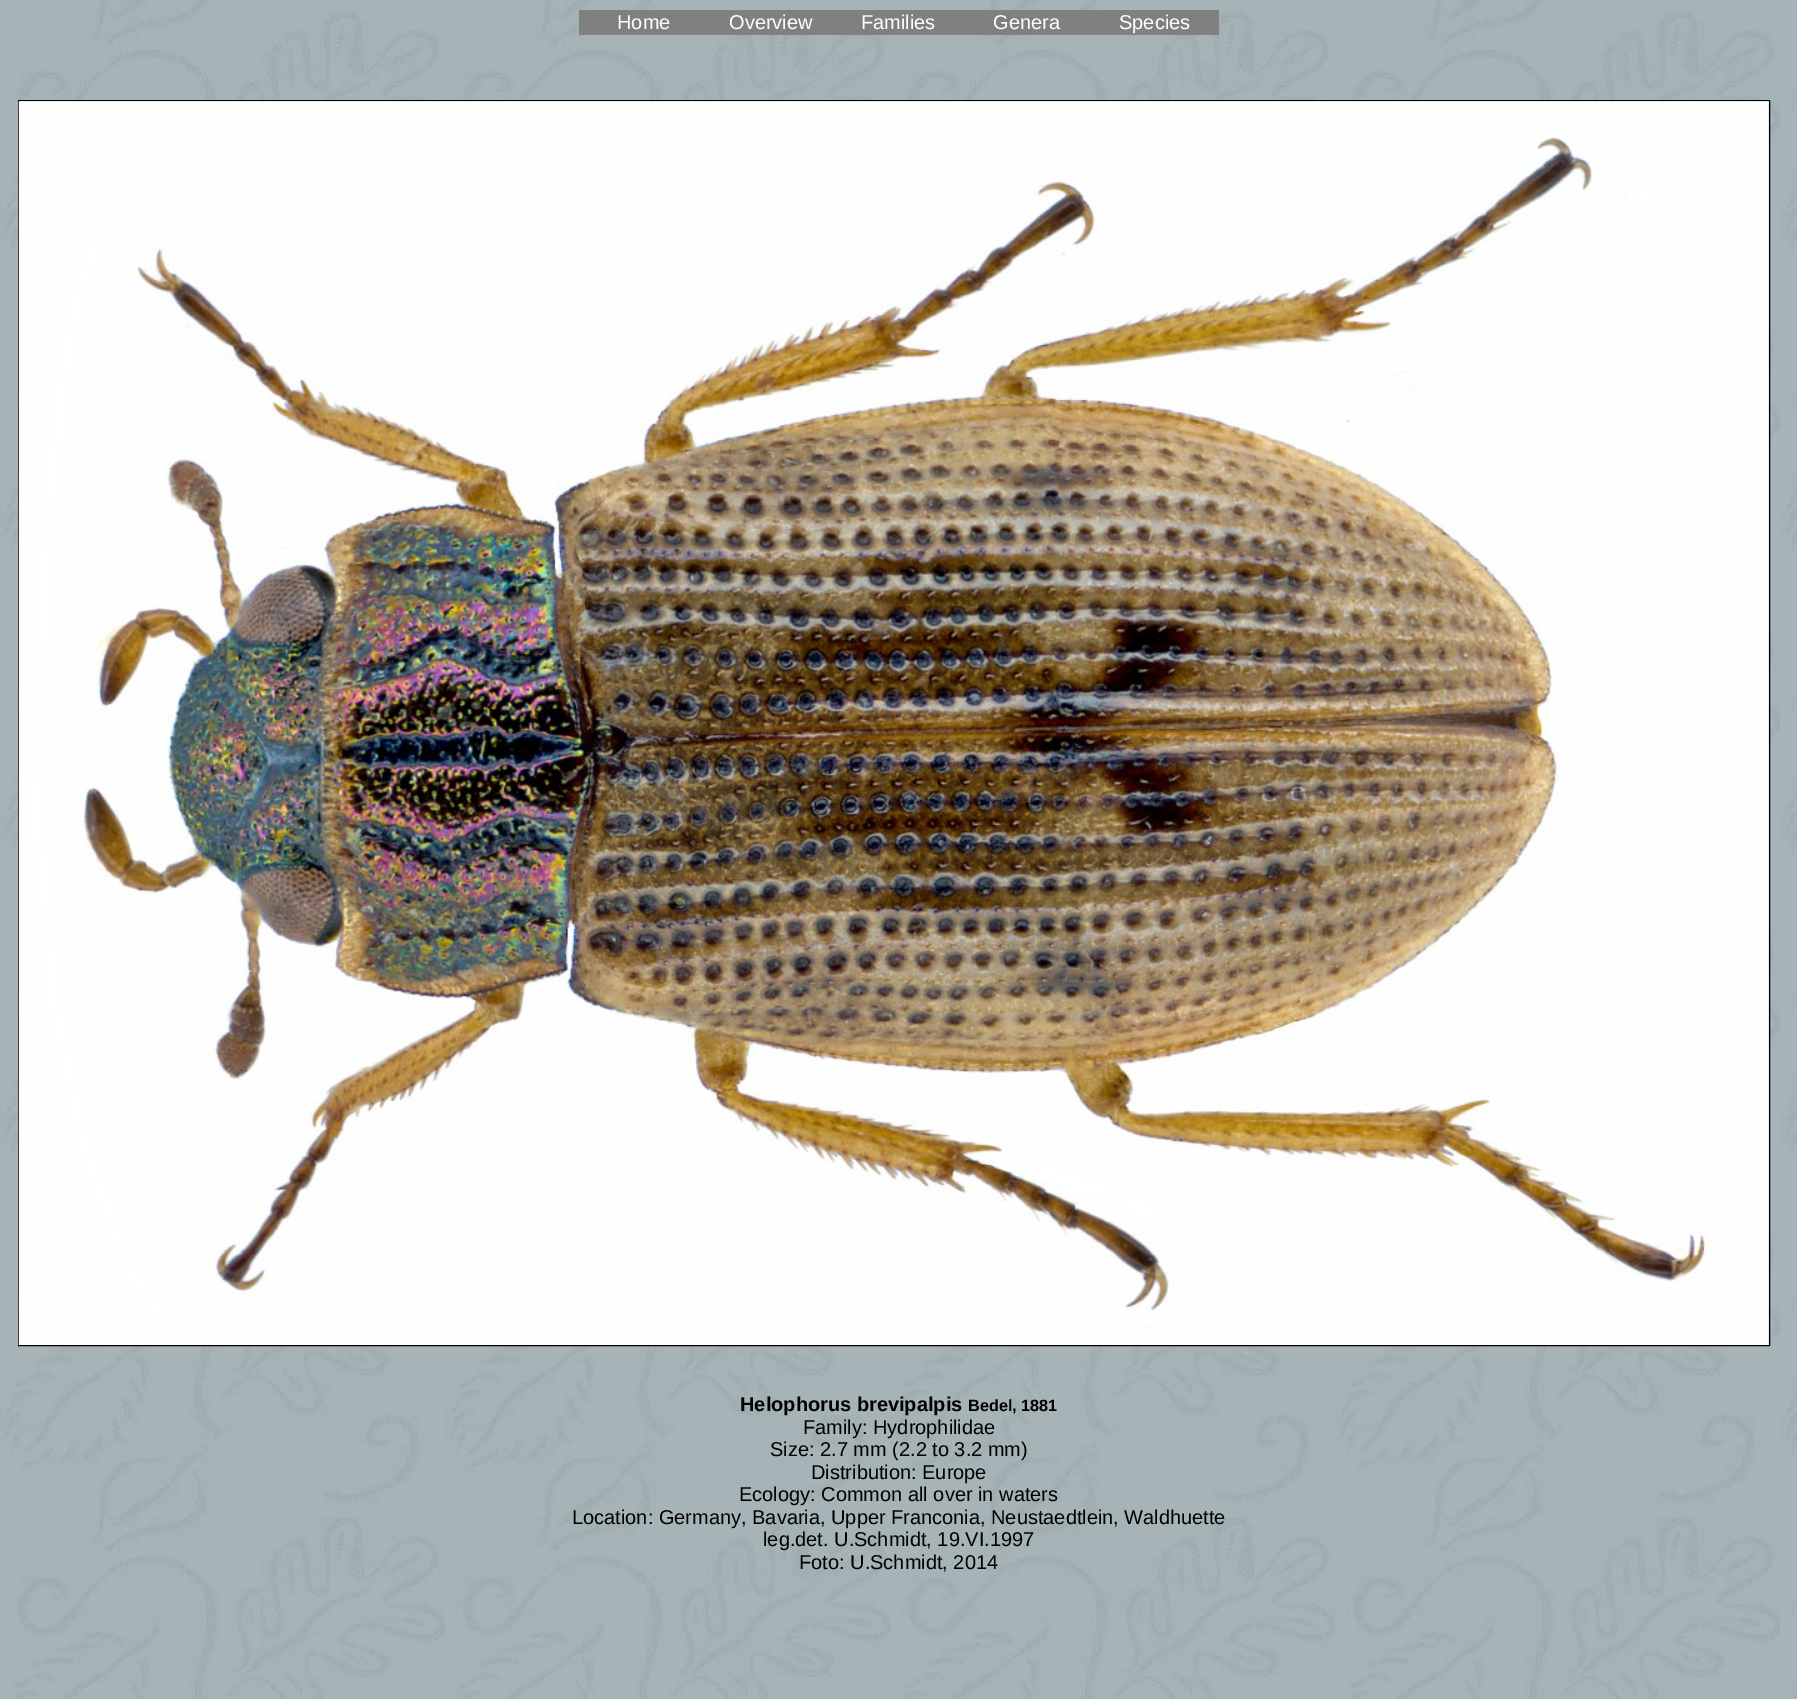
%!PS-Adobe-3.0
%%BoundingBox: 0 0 1797 1699
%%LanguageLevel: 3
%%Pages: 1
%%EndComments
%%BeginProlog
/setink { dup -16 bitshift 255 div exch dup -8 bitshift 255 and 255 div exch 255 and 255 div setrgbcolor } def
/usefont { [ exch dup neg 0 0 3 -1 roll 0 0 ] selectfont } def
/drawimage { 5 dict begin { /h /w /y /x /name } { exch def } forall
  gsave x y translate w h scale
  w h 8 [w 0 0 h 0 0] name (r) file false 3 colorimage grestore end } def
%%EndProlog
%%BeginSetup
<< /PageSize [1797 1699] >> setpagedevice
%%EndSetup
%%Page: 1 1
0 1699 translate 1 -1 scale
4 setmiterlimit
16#FFFFFF setink
0 0 1797 1699 rectfill
(img1.raw) 0 0 1797 1699 drawimage
16#808080 setink
579 10 640 25 rectfill
/LiberationSans-Regular 20 usefont
16#FFFFFF setink
[
    [(Home) 617 29]
    [(Overview) 729 29]
    [(Families) 861 29]
    [(Genera) 993 29]
    [(Species) 1119 29]
] { aload pop moveto show } forall
16#000000 setink
18.5 100.5 1751 1245 rectstroke
(img2.raw) 18 101 1751 1244 drawimage
/LiberationSans-Bold 20 usefont
740 1411 moveto (Helophorus brevipalpis) show
/LiberationSans-Bold 16.25 usefont
968 1411 moveto (Bedel, 1881) show
/LiberationSans-Regular 20 usefont
[
    [(Family: Hydrophilidae) 803 1434]
    [(Size: 2.7 mm \(2.2 to 3.2 mm\)) 770 1456]
    [(Distribution: Europe) 811 1479]
    [(Ecology: Common all over in waters) 739 1501]
    [(Location: Germany, Bavaria, Upper Franconia, Neustaedtlein, Waldhuette) 572 1524]
    [(leg.det. U.Schmidt, 19.VI.1997) 763 1546]
    [(Foto: U.Schmidt, 2014) 799 1569]
] { aload pop moveto show } forall
showpage
%%EOF
